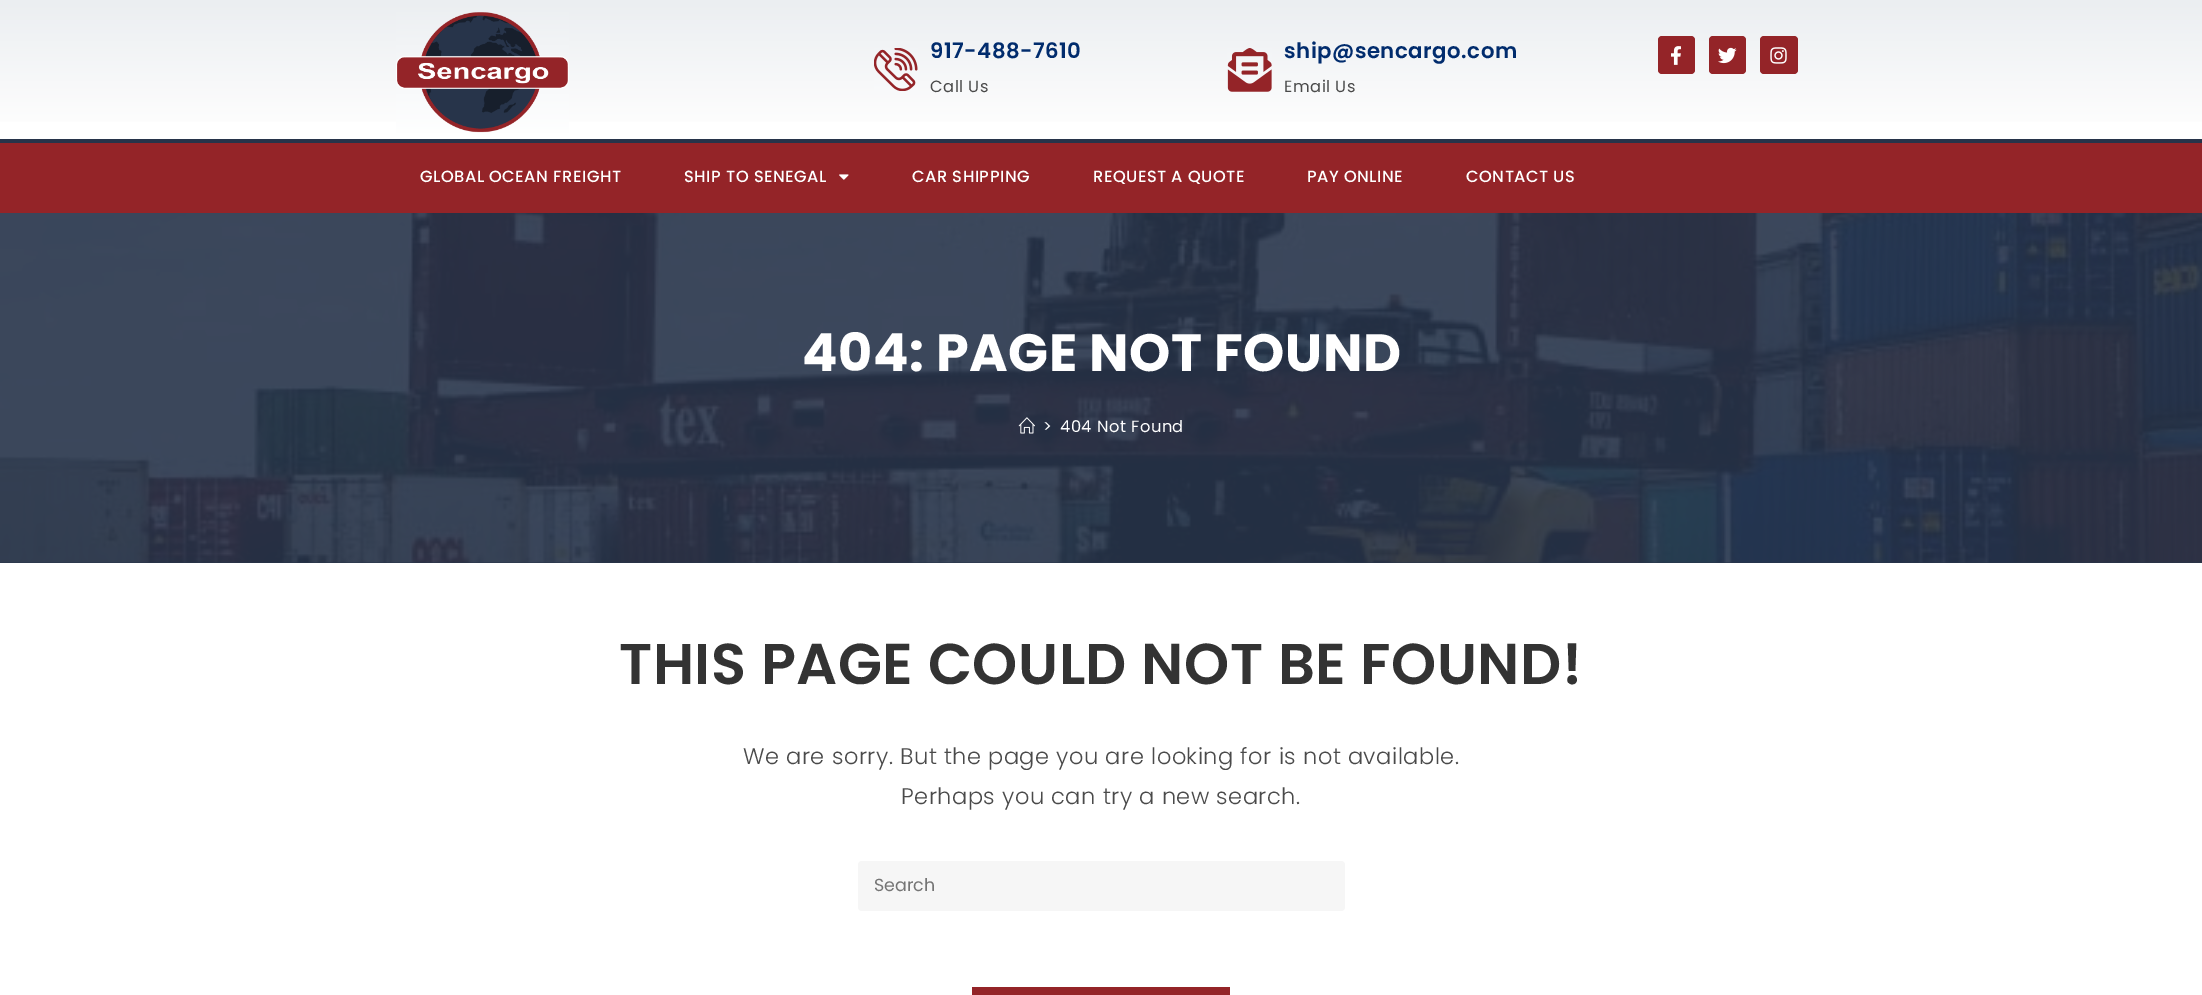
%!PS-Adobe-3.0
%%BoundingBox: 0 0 2202 995
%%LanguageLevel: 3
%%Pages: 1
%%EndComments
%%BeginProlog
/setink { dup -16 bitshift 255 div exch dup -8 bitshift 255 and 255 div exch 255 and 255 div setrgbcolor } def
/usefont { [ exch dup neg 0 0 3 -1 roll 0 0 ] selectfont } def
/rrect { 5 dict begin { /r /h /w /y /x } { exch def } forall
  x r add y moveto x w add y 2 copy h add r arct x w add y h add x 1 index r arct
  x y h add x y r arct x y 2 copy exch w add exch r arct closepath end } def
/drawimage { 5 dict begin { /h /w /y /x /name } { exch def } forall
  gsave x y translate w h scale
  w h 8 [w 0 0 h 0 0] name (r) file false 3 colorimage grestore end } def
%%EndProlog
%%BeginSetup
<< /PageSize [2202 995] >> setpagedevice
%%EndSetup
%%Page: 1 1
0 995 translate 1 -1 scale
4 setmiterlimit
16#FFFFFF setink
0 0 2202 995 rectfill
gsave 0 0 moveto 2202 0 lineto 2202 122 lineto 0 122 lineto closepath clip newpath
<< /ShadingType 2 /ColorSpace /DeviceRGB /Coords [1101 0 1101 139] /Extend [true true] /Function << /FunctionType 2 /Domain [0 1] /C0 [0.922 0.933 0.945] /C1 [1 1 1] /N 1 >> >> shfill grestore
(img1.raw) 396 12 173 121 drawimage
(img2.raw) 874 48 44 43 drawimage
/Poppins-SemiBold 21.25 usefont
16#012C6D setink
930 58 moveto 0.5 0 (917-488-7610) ashow
/Poppins-Regular 16.25 usefont
16#4A4A4A setink
930 92 moveto 0.5 0 (Call Us) ashow
(img3.raw) 1227 48 45 44 drawimage
/Poppins-SemiBold 21.25 usefont
16#012C6D setink
1284 58 moveto 0.5 0 (ship@sencargo.com) ashow
/Poppins-Regular 16.25 usefont
16#4A4A4A setink
1284 92 moveto 0.5 0 (Email Us) ashow
16#942428 setink
1658 36 37 38 4 rrect fill
(img4.raw) 1671 46 10 19 drawimage
1709 36 37 38 4 rrect fill
(img5.raw) 1718 47 19 17 drawimage
1760 36 38 38 4 rrect fill
(img6.raw) 1770 47 17 17 drawimage
0 143 2202 70 rectfill
16#27344A setink
0 139 2202 4 rectfill
/Poppins-Medium 16.25 usefont
16#FFFFFF setink
420 182 moveto 0.5 0 (GLOBAL OCEAN FREIGHT) ashow
684 182 moveto 0.5 0 (SHIP TO SENEGAL) ashow
(img7.raw) 839 174 10 6 drawimage
912 182 moveto 0.5 0 (CAR SHIPPING) ashow
1093 182 moveto 0.5 0 (REQUEST A QUOTE) ashow
1307 182 moveto 0.5 0 (PAY ONLINE) ashow
1466 182 moveto 0.5 0 (CONTACT US) ashow
16#283549 setink
0 562 2202 1 rectfill
(img8.raw) 0 213 2202 350 drawimage
/Poppins-Bold 52.5 usefont
16#FFFFFF setink
802 371 moveto 0.5 0 (404: PAGE NOT FOUND) ashow
(img9.raw) 1018 417 17 17 drawimage
/Poppins-Regular 16.25 usefont
1043 432 moveto 0.5 0 (>) ashow
1060 432 moveto 0.5 0 (404 Not Found) ashow
/Poppins-SemiBold 57.5 usefont
16#333333 setink
619 684 moveto 0.5 0 (THIS PAGE COULD NOT BE FOUND!) ashow
/Poppins-Light 22.5 usefont
16#4A4A4A setink
743 764 moveto 0.5 0 (We are sorry. But the page you are looking for is not available.) ashow
901 804 moveto 0.5 0 (Perhaps you can try a new search.) ashow
16#F6F6F6 setink
858 861 487 50 4 rrect fill
/Poppins-Regular 17.5 usefont
16#757575 setink
874 891 moveto (Search) show
16#942428 setink
972 987 258 8 rectfill
showpage
%%EOF
